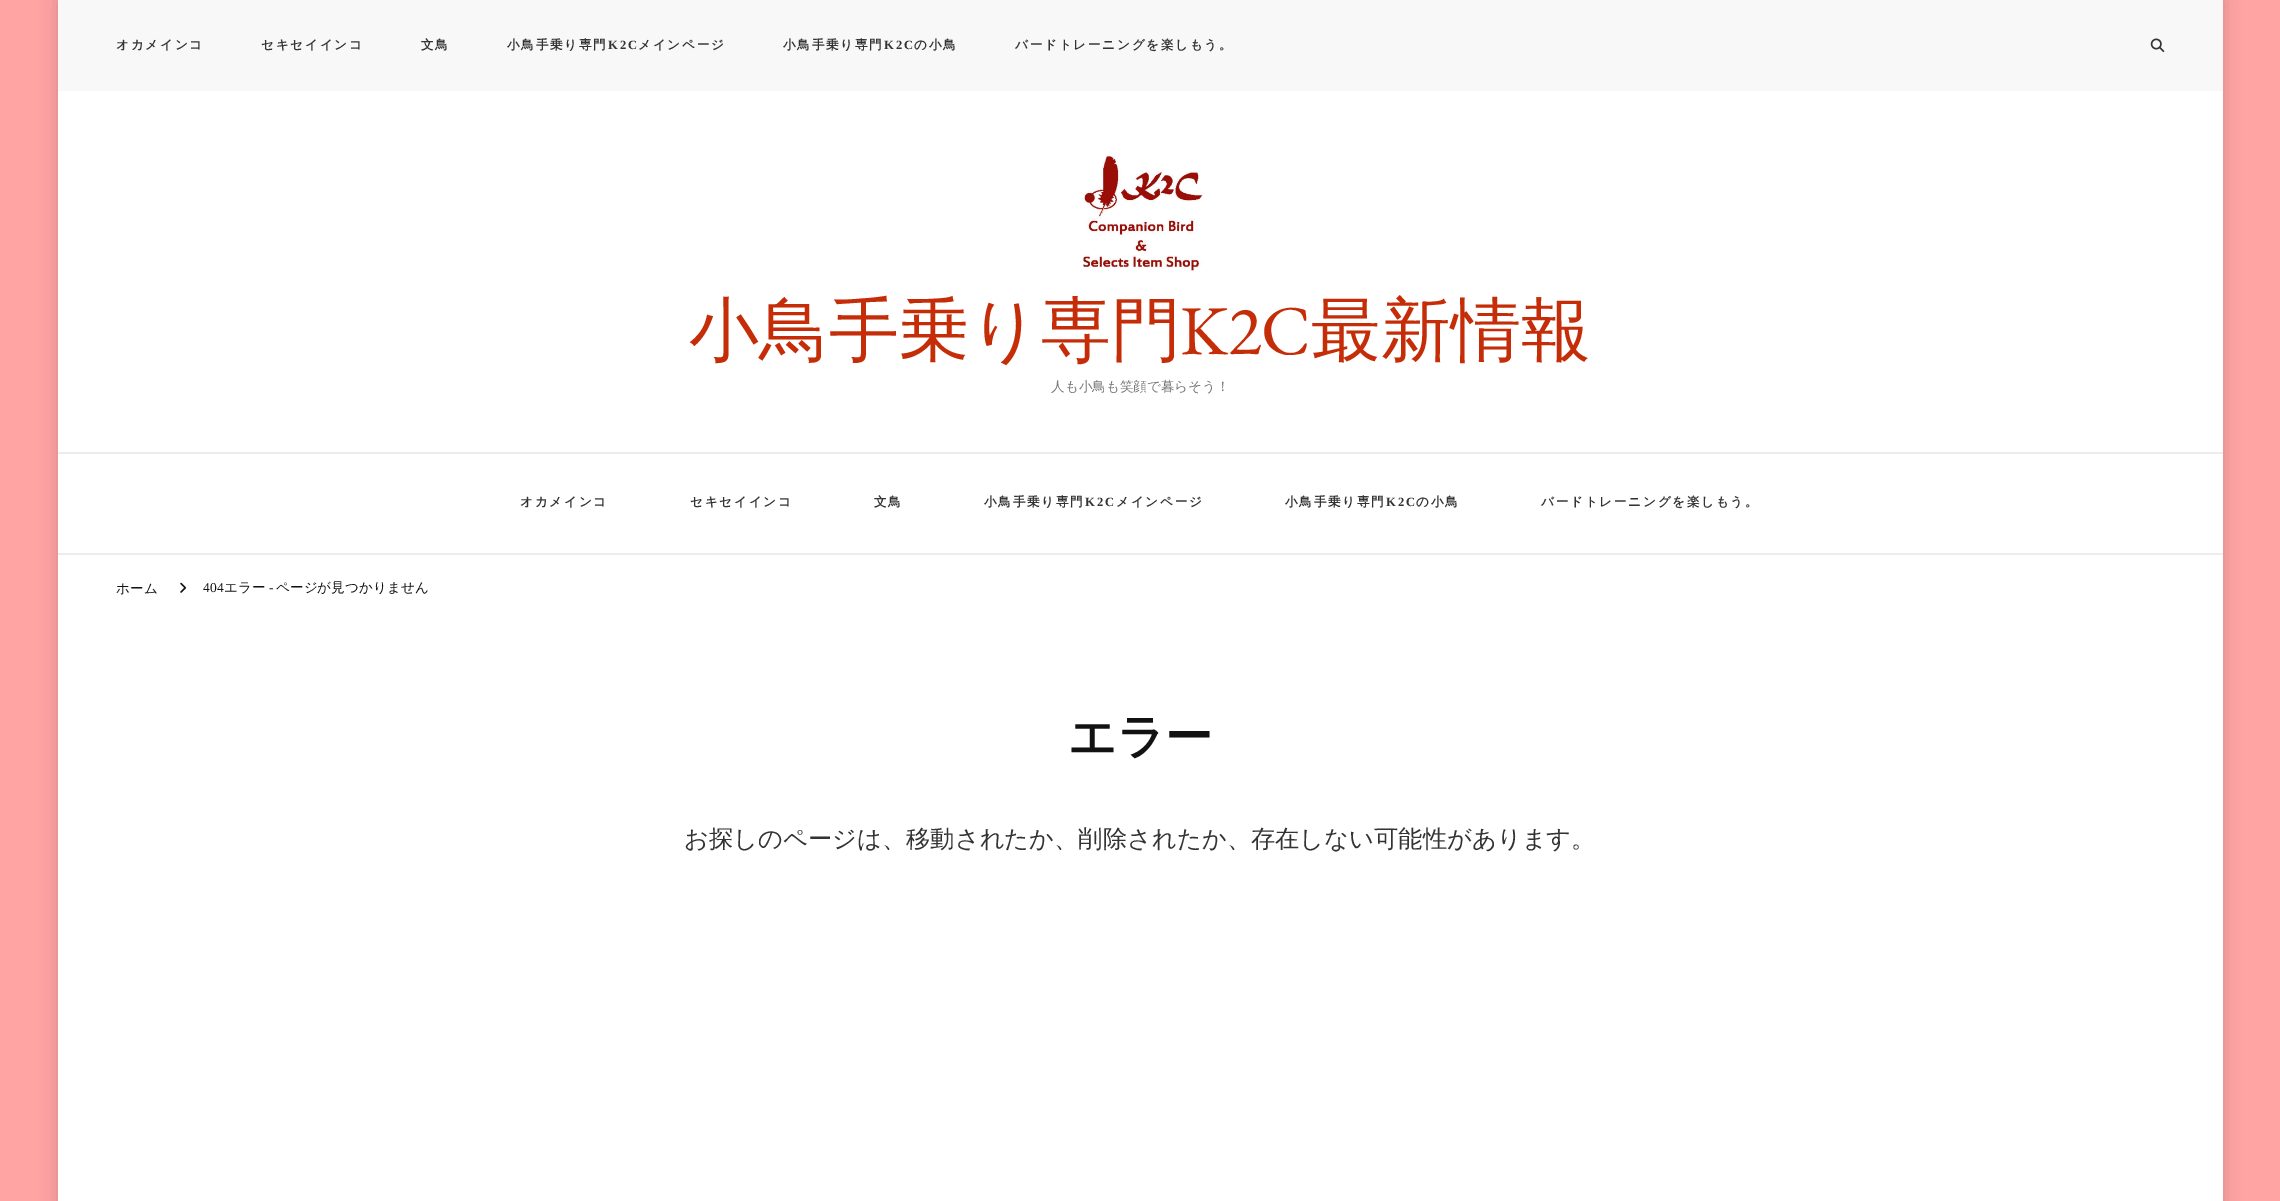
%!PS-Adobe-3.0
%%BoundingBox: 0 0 2280 1201
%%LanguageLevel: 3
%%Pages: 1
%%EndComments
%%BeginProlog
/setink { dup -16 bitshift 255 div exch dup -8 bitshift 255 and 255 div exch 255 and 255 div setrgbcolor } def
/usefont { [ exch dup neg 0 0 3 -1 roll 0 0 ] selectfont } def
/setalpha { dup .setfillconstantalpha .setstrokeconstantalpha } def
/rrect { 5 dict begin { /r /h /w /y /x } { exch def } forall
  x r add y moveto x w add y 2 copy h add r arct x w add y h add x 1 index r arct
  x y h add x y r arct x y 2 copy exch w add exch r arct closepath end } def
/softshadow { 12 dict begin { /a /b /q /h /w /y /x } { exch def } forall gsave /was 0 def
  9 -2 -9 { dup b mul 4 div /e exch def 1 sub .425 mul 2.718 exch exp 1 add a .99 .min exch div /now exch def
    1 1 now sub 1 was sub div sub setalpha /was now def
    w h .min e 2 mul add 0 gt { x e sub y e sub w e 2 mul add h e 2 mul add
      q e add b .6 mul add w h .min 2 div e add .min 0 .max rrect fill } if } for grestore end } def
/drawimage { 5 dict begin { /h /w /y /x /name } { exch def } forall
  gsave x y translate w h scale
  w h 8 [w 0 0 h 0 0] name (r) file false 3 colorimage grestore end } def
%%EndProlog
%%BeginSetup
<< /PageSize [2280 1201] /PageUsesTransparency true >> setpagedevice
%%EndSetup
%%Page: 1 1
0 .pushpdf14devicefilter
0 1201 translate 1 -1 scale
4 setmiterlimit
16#FFA3A3 setink
0 0 2280 1201 rectfill
16#000000 setink
58 0 2165 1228 0 9 0.16 softshadow
16#FFFFFF setink
58 91 2165 1110 rectfill
16#F8F8F8 setink
58 0 2165 91 rectfill
/WenQuanYiZenHei-Bold 12.6 usefont
16#333333 setink
116 49 moveto 1.75 0 (オカメインコ) ashow
261 49 moveto 1.75 0 (セキセイインコ) ashow
421 49 moveto 1.75 0 (文鳥) ashow
507 49 moveto 1.75 0 (小鳥手乗り専門) ashow
/LiberationSerif-Bold 12.6 usefont
608 49 moveto 1.75 0 (K2C) ashow
/WenQuanYiZenHei-Bold 12.6 usefont
638 49 moveto 1.75 0 (メインページ) ashow
783 49 moveto 1.75 0 (小鳥手乗り専門) ashow
/LiberationSerif-Bold 12.6 usefont
884 49 moveto 1.75 0 (K2C) ashow
/WenQuanYiZenHei-Bold 12.6 usefont
914 49 moveto 1.75 0 (の小鳥) ashow
1015 49 moveto 1.75 0 (バードトレーニングを楽しもう。) ashow
(img1.raw) 2150 38 15 14 drawimage
(img2.raw) 1082 156 122 115 drawimage
/WenQuanYiZenHei-Medium 70 usefont
16#C42D07 setink
689 354 moveto (小鳥手乗り専門) show
/EBGaramond-Regular 70 usefont
1180 354 moveto (K2C) show
/WenQuanYiZenHei-Medium 70 usefont
1311 354 moveto (最新情報) show
/WenQuanYiZenHei-Medium 13.6 usefont
16#777777 setink
1051 391 moveto (人も小鳥も笑顔で暮らそう！) show
16#EDEDED setink
58 452 2165 2 rectfill
58 553 2165 2 rectfill
/WenQuanYiZenHei-Bold 12.6 usefont
16#333333 setink
520 506 moveto 1.75 0 (オカメインコ) ashow
690 506 moveto 1.75 0 (セキセイインコ) ashow
874 506 moveto 1.75 0 (文鳥) ashow
984 506 moveto 1.75 0 (小鳥手乗り専門) ashow
/LiberationSerif-Bold 12.6 usefont
1085 506 moveto 1.75 0 (K2C) ashow
/WenQuanYiZenHei-Bold 12.6 usefont
1116 506 moveto 1.75 0 (メインページ) ashow
1285 506 moveto 1.75 0 (小鳥手乗り専門) ashow
/LiberationSerif-Bold 12.6 usefont
1386 506 moveto 1.75 0 (K2C) ashow
/WenQuanYiZenHei-Bold 12.6 usefont
1416 506 moveto 1.75 0 (の小鳥) ashow
1541 506 moveto 1.75 0 (バードトレーニングを楽しもう。) ashow
/WenQuanYiZenHei-Medium 13.6 usefont
16#121212 setink
116 593 moveto (ホーム) show
(img3.raw) 180 582 7 11 drawimage
/LiberationSerif-Regular 13.6 usefont
203 592 moveto (404) show
/WenQuanYiZenHei-Medium 13.6 usefont
224 592 moveto (エラー) show
/LiberationSerif-Regular 13.6 usefont
269 592 moveto (-) show
/WenQuanYiZenHei-Medium 13.6 usefont
276 592 moveto (ページが見つかりません) show
/WenQuanYiZenHei-Bold 47.5 usefont
1068 753 moveto (エラー) show
/WenQuanYiZenHei-Medium 24.3 usefont
16#333333 setink
684 847 moveto (お探しのページは、移動されたか、削除されたか、存在しない可能性があります。) show
.poppdf14devicefilter showpage
%%EOF
